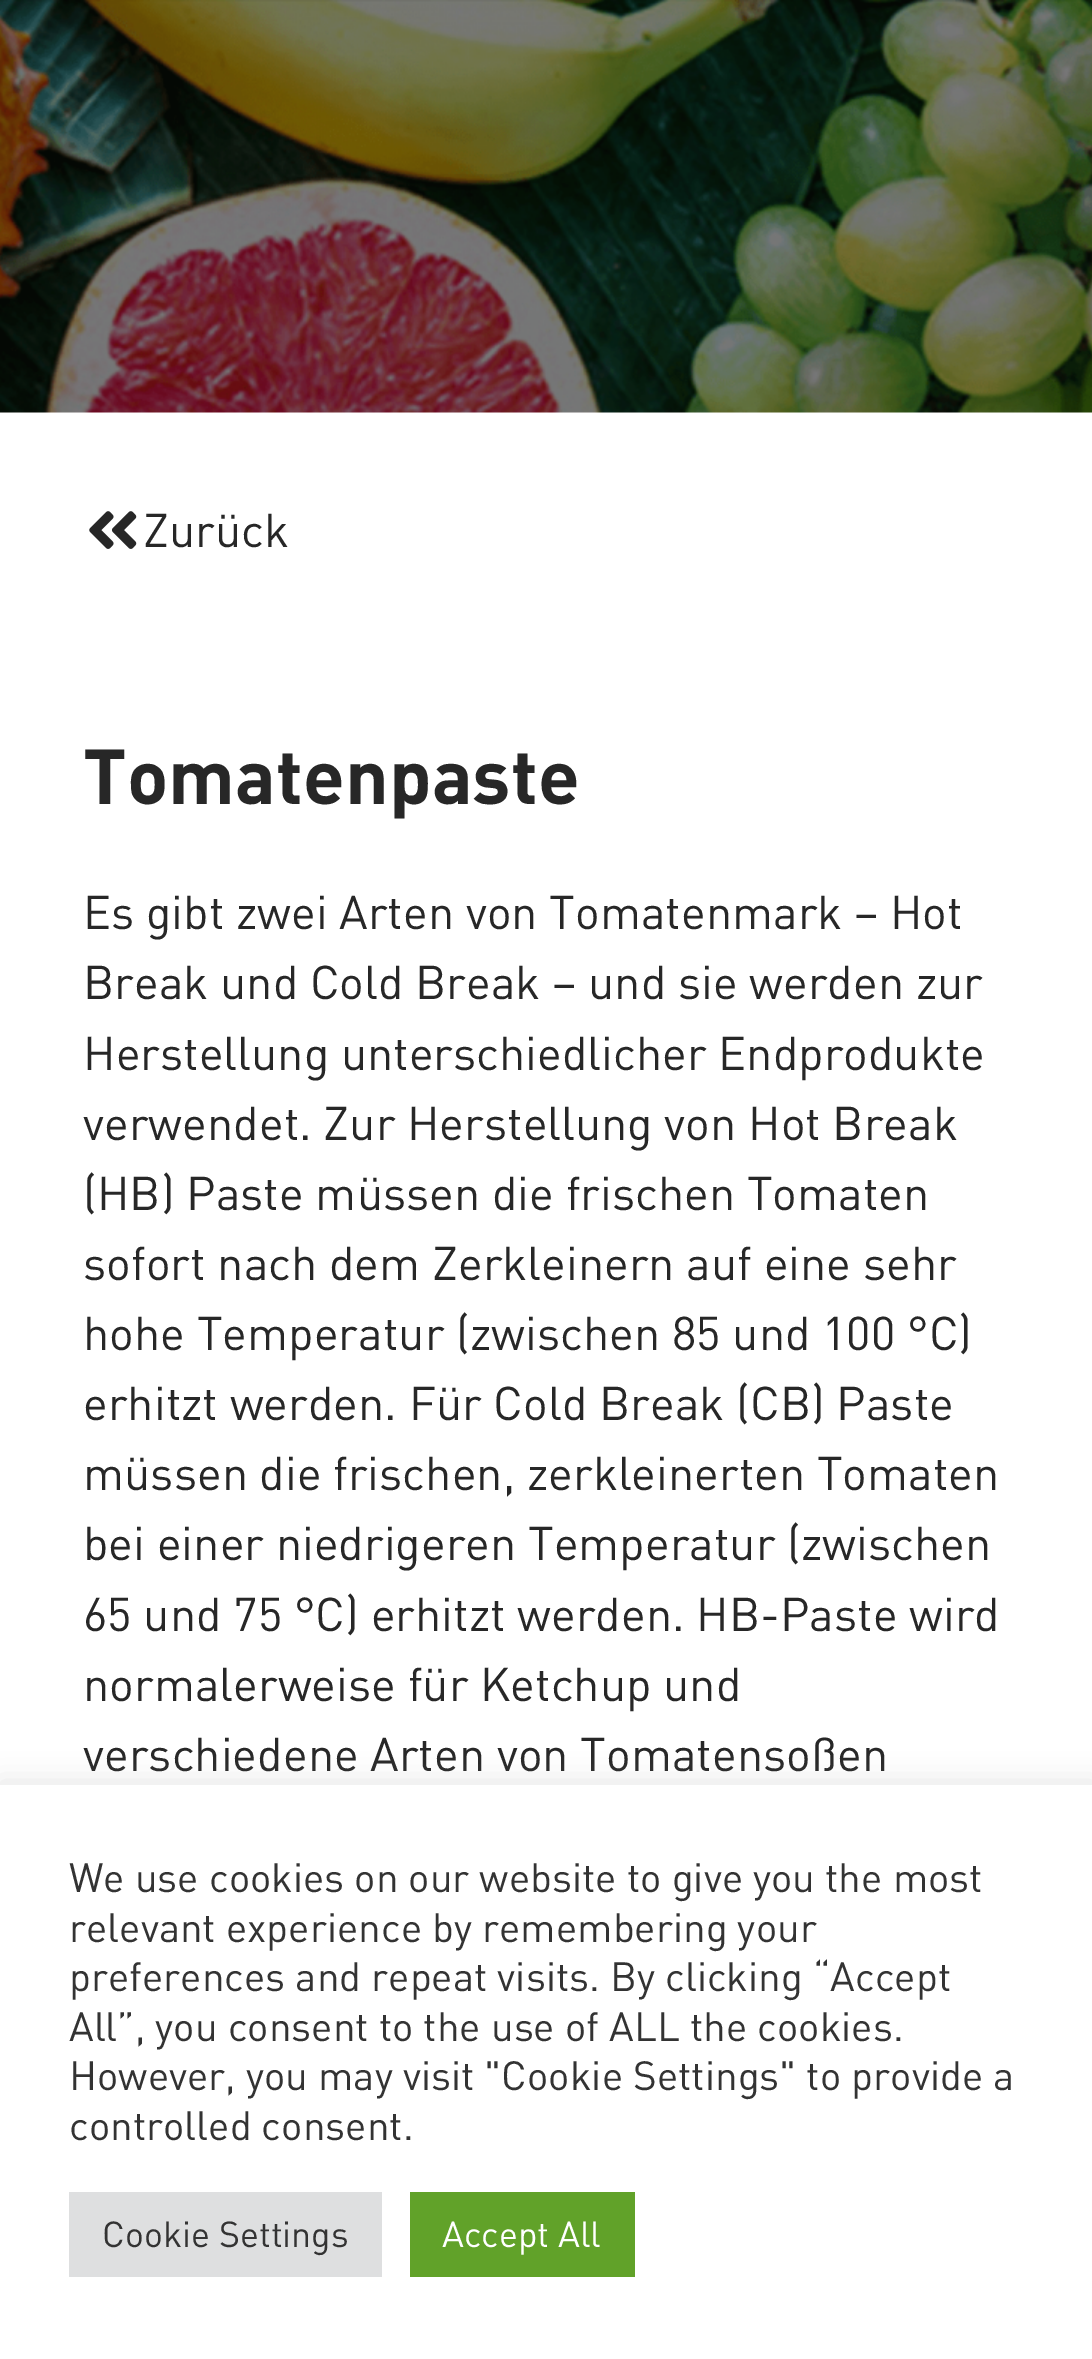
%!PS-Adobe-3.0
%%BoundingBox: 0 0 1092 2359
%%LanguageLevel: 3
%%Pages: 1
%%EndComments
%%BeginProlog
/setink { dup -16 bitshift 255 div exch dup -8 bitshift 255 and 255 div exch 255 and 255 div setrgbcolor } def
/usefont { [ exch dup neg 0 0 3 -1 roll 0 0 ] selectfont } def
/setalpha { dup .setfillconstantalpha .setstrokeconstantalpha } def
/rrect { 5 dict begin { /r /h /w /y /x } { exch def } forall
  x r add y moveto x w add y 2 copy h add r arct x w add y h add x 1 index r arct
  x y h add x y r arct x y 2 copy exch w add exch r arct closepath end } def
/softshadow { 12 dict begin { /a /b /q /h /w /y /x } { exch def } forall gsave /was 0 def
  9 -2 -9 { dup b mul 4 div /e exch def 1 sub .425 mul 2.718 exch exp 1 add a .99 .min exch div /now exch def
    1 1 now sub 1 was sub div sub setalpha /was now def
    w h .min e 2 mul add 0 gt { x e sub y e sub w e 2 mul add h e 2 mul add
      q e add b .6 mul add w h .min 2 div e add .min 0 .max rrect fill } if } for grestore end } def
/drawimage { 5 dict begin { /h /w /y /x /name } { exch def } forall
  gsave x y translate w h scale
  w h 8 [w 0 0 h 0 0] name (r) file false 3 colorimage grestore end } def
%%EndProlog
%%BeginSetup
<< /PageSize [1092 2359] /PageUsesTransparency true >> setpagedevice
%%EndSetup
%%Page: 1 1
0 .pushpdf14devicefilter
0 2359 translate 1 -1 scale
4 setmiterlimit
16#FFFCFC setink
0 0 1092 2359 rectfill
(img1.raw) 0 0 1092 413 drawimage
16#FFFFFF setink
0 413 1092 1372 rectfill
(img2.raw) 89 511 48 38 drawimage
/DIN-Regular 46.75 usefont
16#272727 setink
143 547 moveto (Zurück) show
/DIN-Bold 76.5 usefont
83 804 moveto (Tomatenpaste) show
/DIN-Regular 46.75 usefont
[
    [(Es gibt zwei Arten von Tomatenmark – Hot) 83 929]
    [(Break und Cold Break – und sie werden zur) 83 999]
    [(Herstellung unterschiedlicher Endprodukte) 83 1070]
    [(verwendet. Zur Herstellung von Hot Break) 83 1140]
    [(\(HB\) Paste müssen die frischen Tomaten) 83 1210]
    [(sofort nach dem Zerkleinern auf eine sehr) 83 1280]
    [(hohe Temperatur \(zwischen 85 und 100 °C\)) 83 1350]
    [(erhitzt werden. Für Cold Break \(CB\) Paste) 83 1420]
    [(müssen die frischen, zerkleinerten Tomaten) 83 1490]
    [(bei einer niedrigeren Temperatur \(zwischen) 83 1560]
    [(65 und 75 °C\) erhitzt werden. HB-Paste wird) 83 1631]
    [(normalerweise für Ketchup und) 83 1701]
    [(verschiedene Arten von Tomatensoßen) 83 1771]
] { aload pop moveto show } forall
16#ACABAB setink
0 1782 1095 575 0 14 0.3 softshadow
16#FFFFFF setink
0 1785 1092 574 rectfill
/DIN-Regular 40.3 usefont
16#333333 setink
[
    [(We use cookies on our website to give you the most) 69 1892]
    [(relevant experience by remembering your) 69 1942]
    [(preferences and repeat visits. By clicking “Accept) 69 1991]
    [(All”, you consent to the use of ALL the cookies.) 69 2041]
    [(However, you may visit "Cookie Settings" to provide a) 69 2090]
    [(controlled consent.) 69 2140]
] { aload pop moveto show } forall
16#DEDFE0 setink
69 2192 313 85 rectfill
/DIN-Regular 35.75 usefont
16#333333 setink
102 2247 moveto (Cookie Settings) show
16#61A229 setink
410 2192 225 85 rectfill
16#FFFFFF setink
442 2247 moveto (Accept All) show
.poppdf14devicefilter showpage
%%EOF
